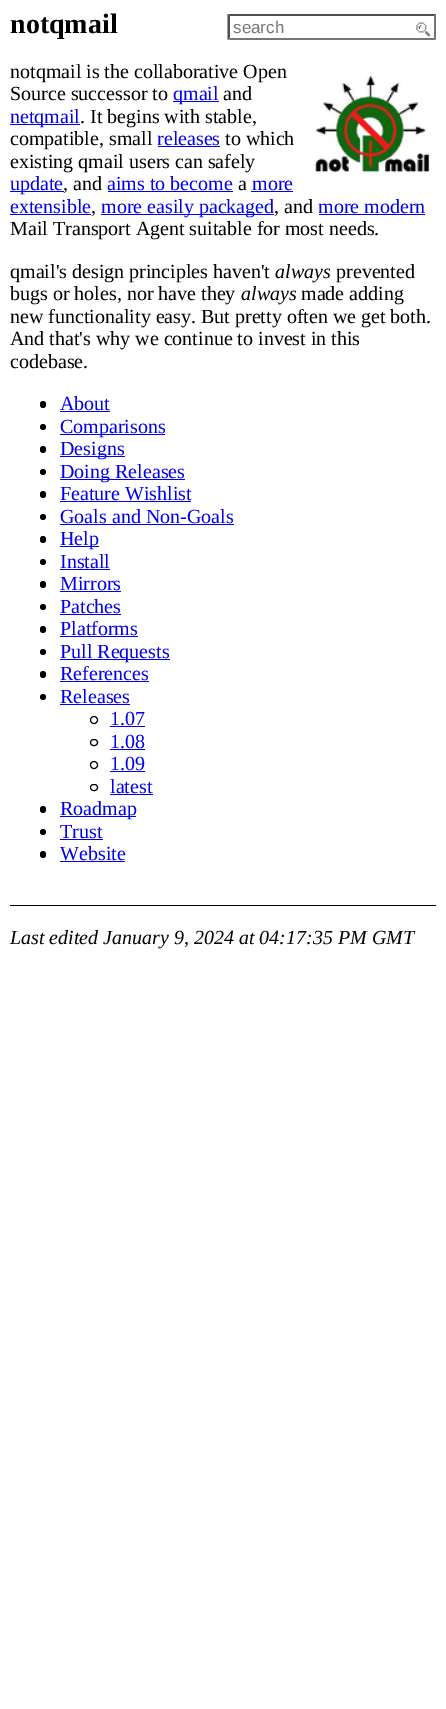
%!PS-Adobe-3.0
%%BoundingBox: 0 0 446 1709
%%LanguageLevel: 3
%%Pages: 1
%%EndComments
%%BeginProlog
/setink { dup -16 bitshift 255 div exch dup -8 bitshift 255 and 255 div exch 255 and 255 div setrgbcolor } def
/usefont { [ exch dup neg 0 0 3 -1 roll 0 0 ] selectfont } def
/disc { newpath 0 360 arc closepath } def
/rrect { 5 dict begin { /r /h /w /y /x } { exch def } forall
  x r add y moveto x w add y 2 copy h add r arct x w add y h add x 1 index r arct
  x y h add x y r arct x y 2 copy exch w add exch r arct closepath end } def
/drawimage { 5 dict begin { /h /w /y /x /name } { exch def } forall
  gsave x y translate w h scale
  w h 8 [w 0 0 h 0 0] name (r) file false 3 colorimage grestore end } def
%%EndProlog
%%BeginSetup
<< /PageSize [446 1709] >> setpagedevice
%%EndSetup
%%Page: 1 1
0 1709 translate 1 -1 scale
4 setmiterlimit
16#FFFFFF setink
0 0 446 1709 rectfill
/LiberationSerif-Bold 28 usefont
16#000000 setink
10 33 moveto (notqmail) show
(img1.raw) 416 22 15 15 drawimage
16#4F4F4F setink
228 14 moveto 436 14 lineto 434 16 lineto 230 16 lineto closepath fill
16#767676 setink
436 14 moveto 436 40 lineto 434 37.5 lineto 434 16 lineto closepath fill
436 40 moveto 228 40 lineto 230 38 lineto 434 38 lineto closepath fill
16#4F4F4F setink
227.5 40 moveto 227.5 14 lineto 230 16 lineto 230 37.5 lineto closepath fill
/LiberationSans-Regular 17 usefont
16#757575 setink
233 33 moveto (search) show
/LiberationSerif-Regular 20 usefont
16#000000 setink
10 78 moveto (notqmail is the collaborative Open) show
10 100 moveto (Source successor to) show
16#0000EE setink
173 101 46 1 rectfill
173 100 moveto (qmail) show
16#000000 setink
223 100 moveto (and) show
16#0000EE setink
10 124 70 1 rectfill
10 123 moveto (netqmail) show
16#000000 setink
80 123 moveto (. It begins with stable,) show
10 145 moveto (compatible, small) show
16#0000EE setink
157 145 moveto (releases) show
158 146 62 1 rectfill
16#000000 setink
225 145 moveto (to which) show
10 168 moveto (existing qmail users can safely) show
16#0000EE setink
10 191 54 1 rectfill
10 190 moveto (update) show
16#000000 setink
63 190 moveto (, and) show
16#0000EE setink
107 190 moveto (aims to become) show
108 191 125 1 rectfill
16#000000 setink
238 190 moveto (a) show
16#0000EE setink
252 190 moveto (more) show
251 191 42 1 rectfill
10 213 moveto (extensible) show
10 214 81 1 rectfill
16#000000 setink
91 213 moveto (,) show
16#0000EE setink
101 214 173 1 rectfill
101 213 moveto (more easily packaged) show
16#000000 setink
274 213 moveto (, and) show
16#0000EE setink
318 213 moveto (more modern) show
319 214 106 1 rectfill
16#000000 setink
10 235 moveto (Mail Transport Agent suitable for most needs.) show
(img2.raw) 314 75 116 98 drawimage
10 278 moveto (qmail's design principles haven't) show
/LiberationSerif-Italic 20 usefont
275 278 moveto (always) show
/LiberationSerif-Regular 20 usefont
336 278 moveto (prevented) show
10 300 moveto (bugs or holes, nor have they) show
/LiberationSerif-Italic 20 usefont
241 300 moveto (always) show
/LiberationSerif-Regular 20 usefont
[
    [(made adding) 301 300]
    [(new functionality easy. But pretty often we get both.) 10 323]
    [(And that's why we continue to invest in this) 10 345]
    [(codebase.) 10 368]
] { aload pop moveto show } forall
40 401 6 7 3 rrect fill
16#0000EE setink
60 410 moveto (About) show
60 411 50 1 rectfill
16#000000 setink
43 427 3 disc fill
16#0000EE setink
60 434 105 1 rectfill
60 433 moveto (Comparisons) show
16#000000 setink
40 446 6 7 3 rrect fill
16#0000EE setink
60 456 65 1 rectfill
60 455 moveto (Designs) show
16#000000 setink
43 472 3 disc fill
16#0000EE setink
60 479 125 1 rectfill
60 478 moveto (Doing Releases) show
16#000000 setink
40 491 6 7 3 rrect fill
16#0000EE setink
60 500 moveto (Feature Wishlist) show
60 501 131 1 rectfill
16#000000 setink
43 517 3 disc fill
16#0000EE setink
60 523 moveto (Goals and Non-Goals) show
60 524 174 1 rectfill
16#000000 setink
40 536 6 7 3 rrect fill
16#0000EE setink
60 546 39 1 rectfill
60 545 moveto (Help) show
16#000000 setink
43 562 3 disc fill
16#0000EE setink
60 568 moveto (Install) show
60 569 50 1 rectfill
16#000000 setink
40 581 6 7 3 rrect fill
16#0000EE setink
60 590 moveto (Mirrors) show
60 591 61 1 rectfill
16#000000 setink
43 607 3 disc fill
16#0000EE setink
60 613 moveto (Patches) show
60 614 61 1 rectfill
16#000000 setink
40 626 6 7 3 rrect fill
16#0000EE setink
60 635 moveto (Platforms) show
60 636 78 1 rectfill
16#000000 setink
43 652 3 disc fill
16#0000EE setink
60 659 110 1 rectfill
60 658 moveto (Pull Requests) show
16#000000 setink
40 671 6 7 3 rrect fill
16#0000EE setink
60 680 moveto (References) show
60 681 89 1 rectfill
16#000000 setink
43 697 3 disc fill
16#0000EE setink
60 703 moveto (Releases) show
60 704 70 1 rectfill
16#000000 setink
94 720 3.5 disc stroke
16#0000EE setink
110 725 moveto (1.07) show
110 726 35 1 rectfill
16#000000 setink
90.5 739.5 7 6 3 rrect stroke
16#0000EE setink
110 748 moveto (1.08) show
110 749 35 1 rectfill
16#000000 setink
94 765 3.5 disc stroke
16#0000EE setink
110 770 moveto (1.09) show
110 771 35 1 rectfill
16#000000 setink
90.5 784.5 7 6 3 rrect stroke
16#0000EE setink
110 793 moveto (latest) show
110 794 43 1 rectfill
16#000000 setink
40 806 6 7 3 rrect fill
16#0000EE setink
60 816 76 1 rectfill
60 815 moveto (Roadmap) show
16#000000 setink
43 832 3 disc fill
16#0000EE setink
60 838 moveto (Trust) show
60 839 43 1 rectfill
16#000000 setink
40 851 6 7 3 rrect fill
16#0000EE setink
60 860 moveto (Website) show
60 861 65 1 rectfill
16#000000 setink
10 905 426 1 rectfill
/LiberationSerif-Italic 20 usefont
10 944 moveto (Last edited January 9, 2024 at 04:17:35 PM GMT) show
showpage
%%EOF
